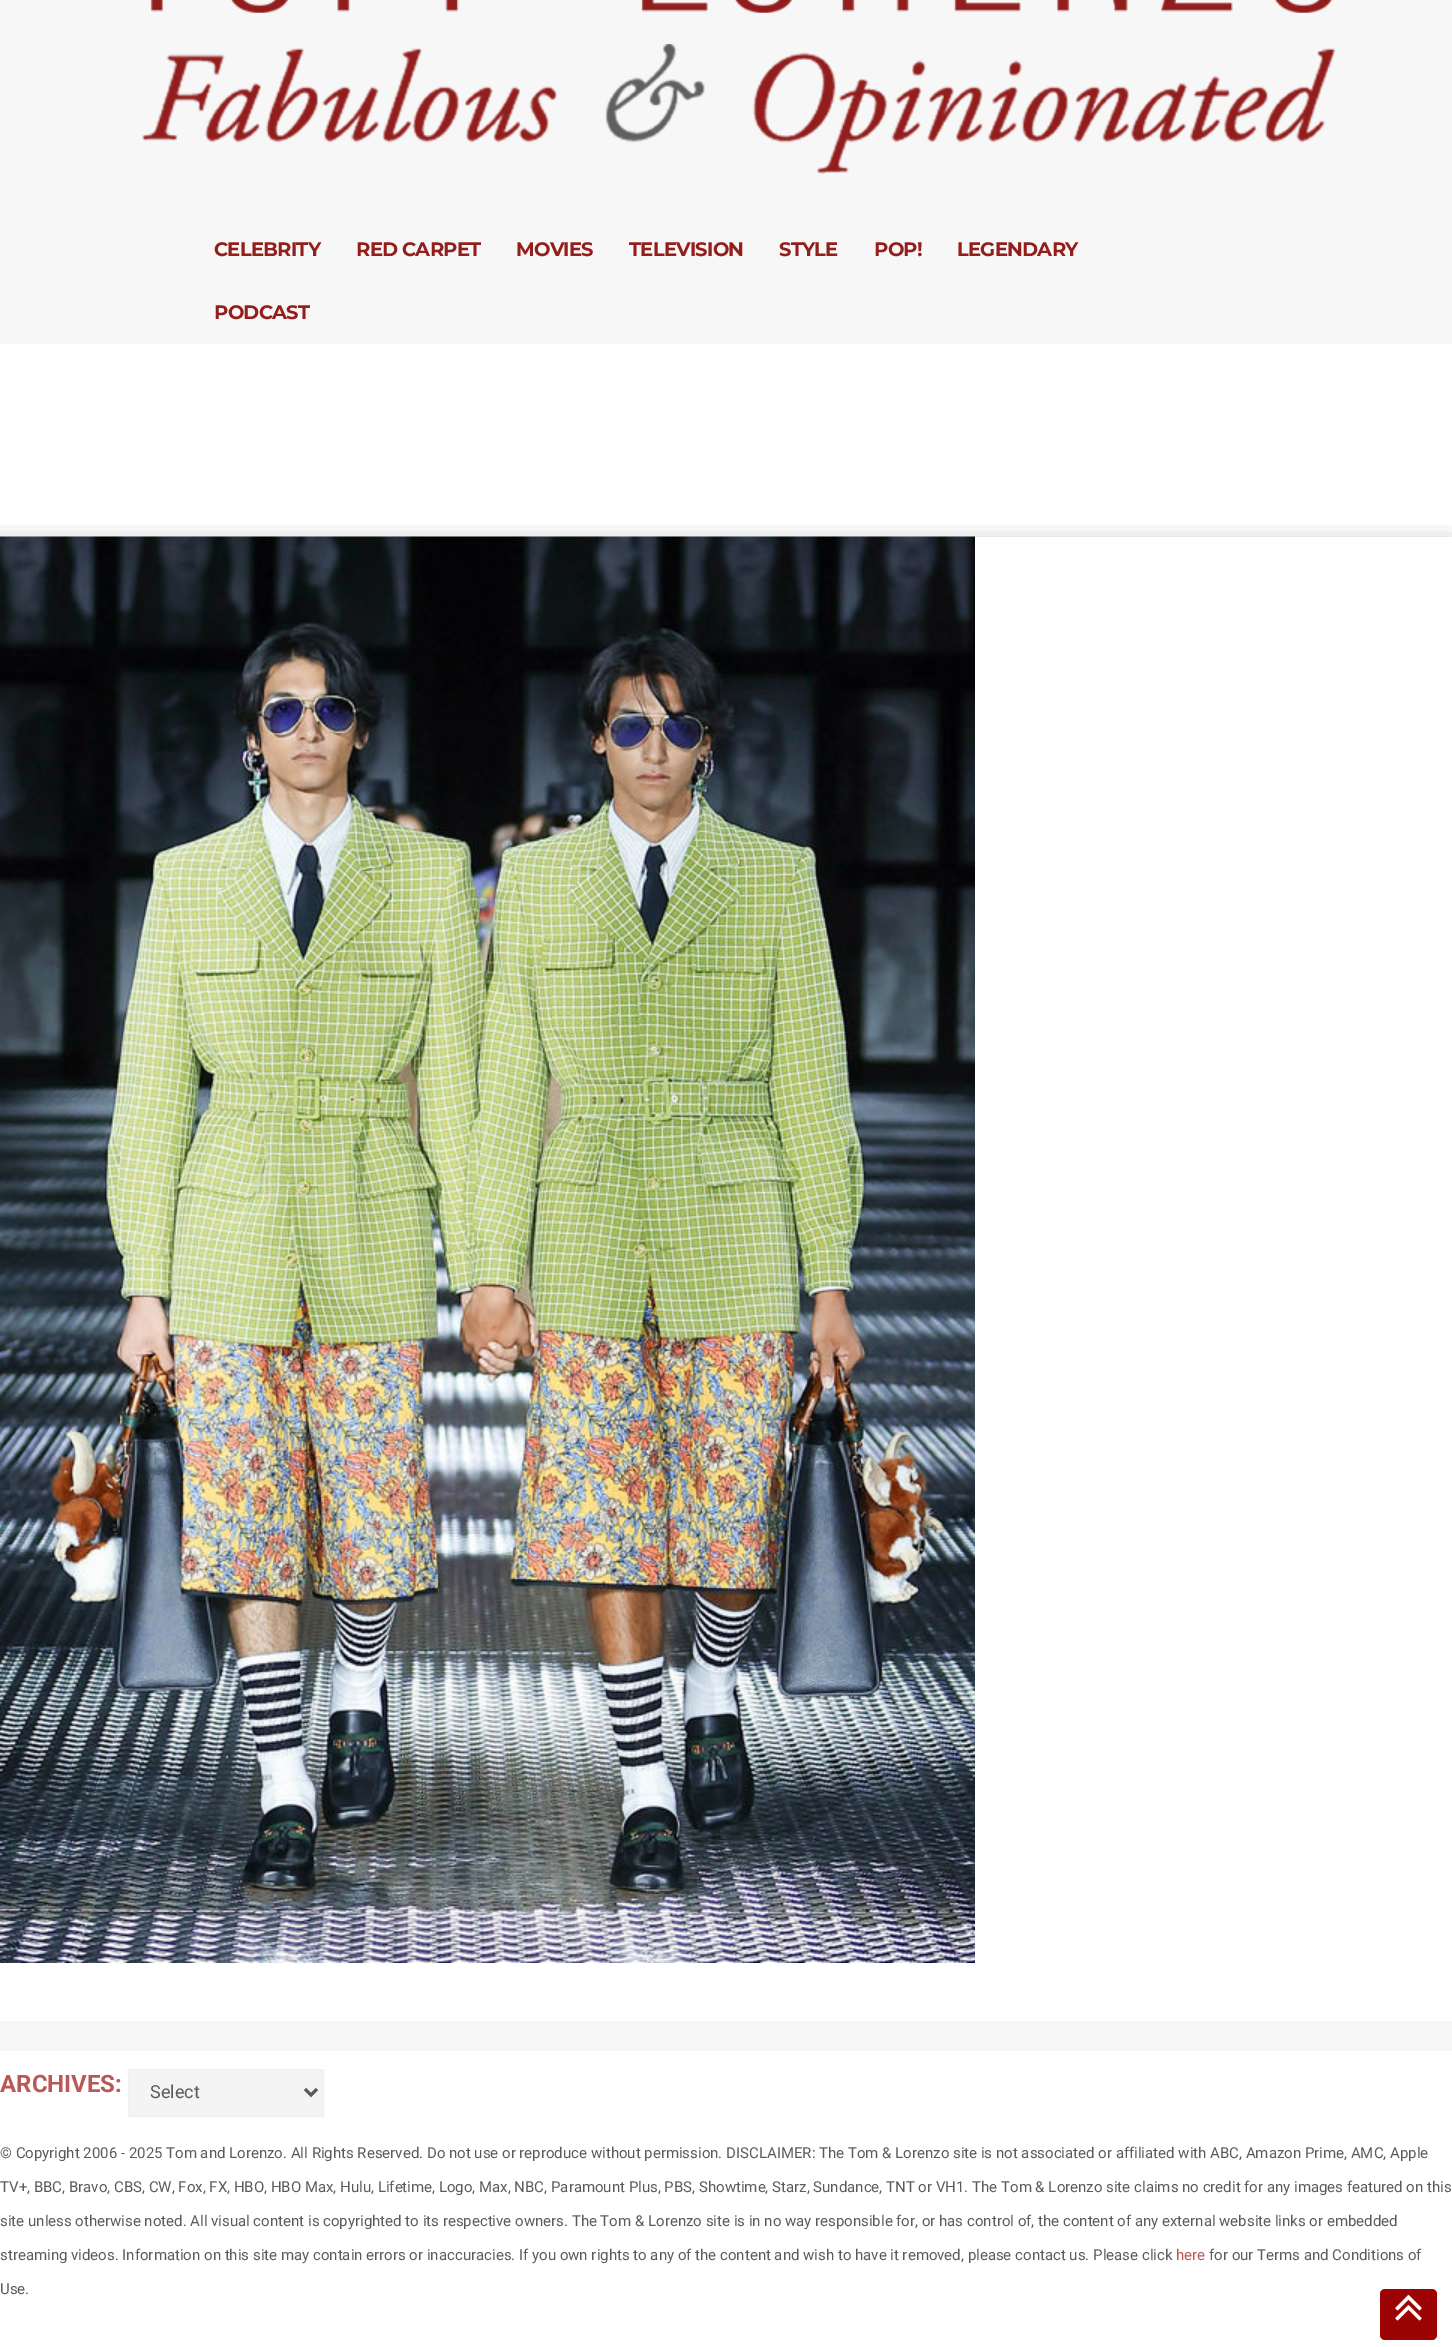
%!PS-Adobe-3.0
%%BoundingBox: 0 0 1452 2347
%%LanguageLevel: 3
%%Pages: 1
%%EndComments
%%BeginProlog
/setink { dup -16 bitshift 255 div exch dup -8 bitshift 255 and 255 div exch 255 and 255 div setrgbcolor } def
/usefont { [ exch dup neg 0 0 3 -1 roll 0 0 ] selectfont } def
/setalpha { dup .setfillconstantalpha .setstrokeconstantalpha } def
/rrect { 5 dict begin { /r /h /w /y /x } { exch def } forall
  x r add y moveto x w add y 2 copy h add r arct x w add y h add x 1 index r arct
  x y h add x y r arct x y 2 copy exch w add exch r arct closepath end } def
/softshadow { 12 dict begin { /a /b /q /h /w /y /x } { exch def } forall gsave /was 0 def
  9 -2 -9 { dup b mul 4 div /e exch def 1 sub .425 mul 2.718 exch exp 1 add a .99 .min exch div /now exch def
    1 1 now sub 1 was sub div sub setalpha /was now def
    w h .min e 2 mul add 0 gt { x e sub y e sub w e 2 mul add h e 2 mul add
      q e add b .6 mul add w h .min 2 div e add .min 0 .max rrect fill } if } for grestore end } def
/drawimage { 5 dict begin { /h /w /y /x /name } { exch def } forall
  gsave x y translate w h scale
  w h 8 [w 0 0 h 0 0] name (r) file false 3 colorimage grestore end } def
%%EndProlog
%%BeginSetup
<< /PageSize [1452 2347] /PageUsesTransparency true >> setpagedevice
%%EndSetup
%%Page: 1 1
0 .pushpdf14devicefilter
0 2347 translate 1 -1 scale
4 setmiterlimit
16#FFFFFF setink
0 0 1452 2347 rectfill
16#F7F7F7 setink
0 0 1452 344 rectfill
(img1.raw) 142 0 1194 174 drawimage
/Montserrat-Bold 19.5 usefont
16#941E1B setink
214 256 moveto -0.75 0 (CELEBRITY) ashow
356 256 moveto -0.75 0 (RED CARPET) ashow
516 256 moveto -0.75 0 (MOVIES) ashow
629 256 moveto -0.75 0 (TELEVISION) ashow
779 256 moveto -0.75 0 (STYLE) ashow
874 256 moveto -0.75 0 (POP!) ashow
957 256 moveto -0.75 0 (LEGENDARY) ashow
214 319 moveto -0.75 0 (PODCAST) ashow
gsave
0 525 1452 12 rectclip
16#000000 setink
0 539 1452 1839 0 11 0.2 softshadow
grestore
(img2.raw) 0 536 975 1427 drawimage
16#F7F7F7 setink
0 2021 1452 30 rectfill
/Roboto-Bold 24 usefont
16#BA5858 setink
0 2092 moveto (ARCHIVES:) show
16#F4F4F4 setink
129 2070 moveto 323 2070 lineto 323 2116 lineto 129 2116 lineto closepath gsave fill grestore
16#F1F1F1 setink
2 setlinewidth
stroke
16#5B5B5B setink
3 setlinewidth
305 2089 moveto 311 2095 lineto 317 2089 lineto stroke
/Roboto-Regular 18 usefont
150 2098 moveto (Select) show
/Roboto-Regular 15 usefont
[
    [(© Copyright 2006 - 2025 Tom and Lorenzo. All Rights Reserved. Do not use or reproduce without permission. DISCLAIMER: The Tom & Lorenzo site is not associated or affiliated with ABC, Amazon Prime, AMC, Apple) 0 2158]
    [(TV+, BBC, Bravo, CBS, CW, Fox, FX, HBO, HBO Max, Hulu, Lifetime, Logo, Max, NBC, Paramount Plus, PBS, Showtime, Starz, Sundance, TNT or VH1. The Tom & Lorenzo site claims no credit for any images featured on this) 0 2192]
    [(site unless otherwise noted. All visual content is copyrighted to its respective owners. The Tom & Lorenzo site is in no way responsible for, or has control of, the content of any external website links or embedded) 0 2226]
    [(streaming videos. Information on this site may contain errors or inaccuracies. If you own rights to any of the content and wish to have it removed, please contact us. Please click) 0 2260]
] { aload pop moveto show } forall
16#BA5858 setink
1176 2260 moveto (here) show
16#5B5B5B setink
1209 2260 moveto (for our Terms and Conditions of) show
0 2294 moveto (Use.) show
16#9C0303 setink
1380 2289 57 51 5 rrect fill
(img3.raw) 1395 2295 27 26 drawimage
.poppdf14devicefilter showpage
%%EOF
